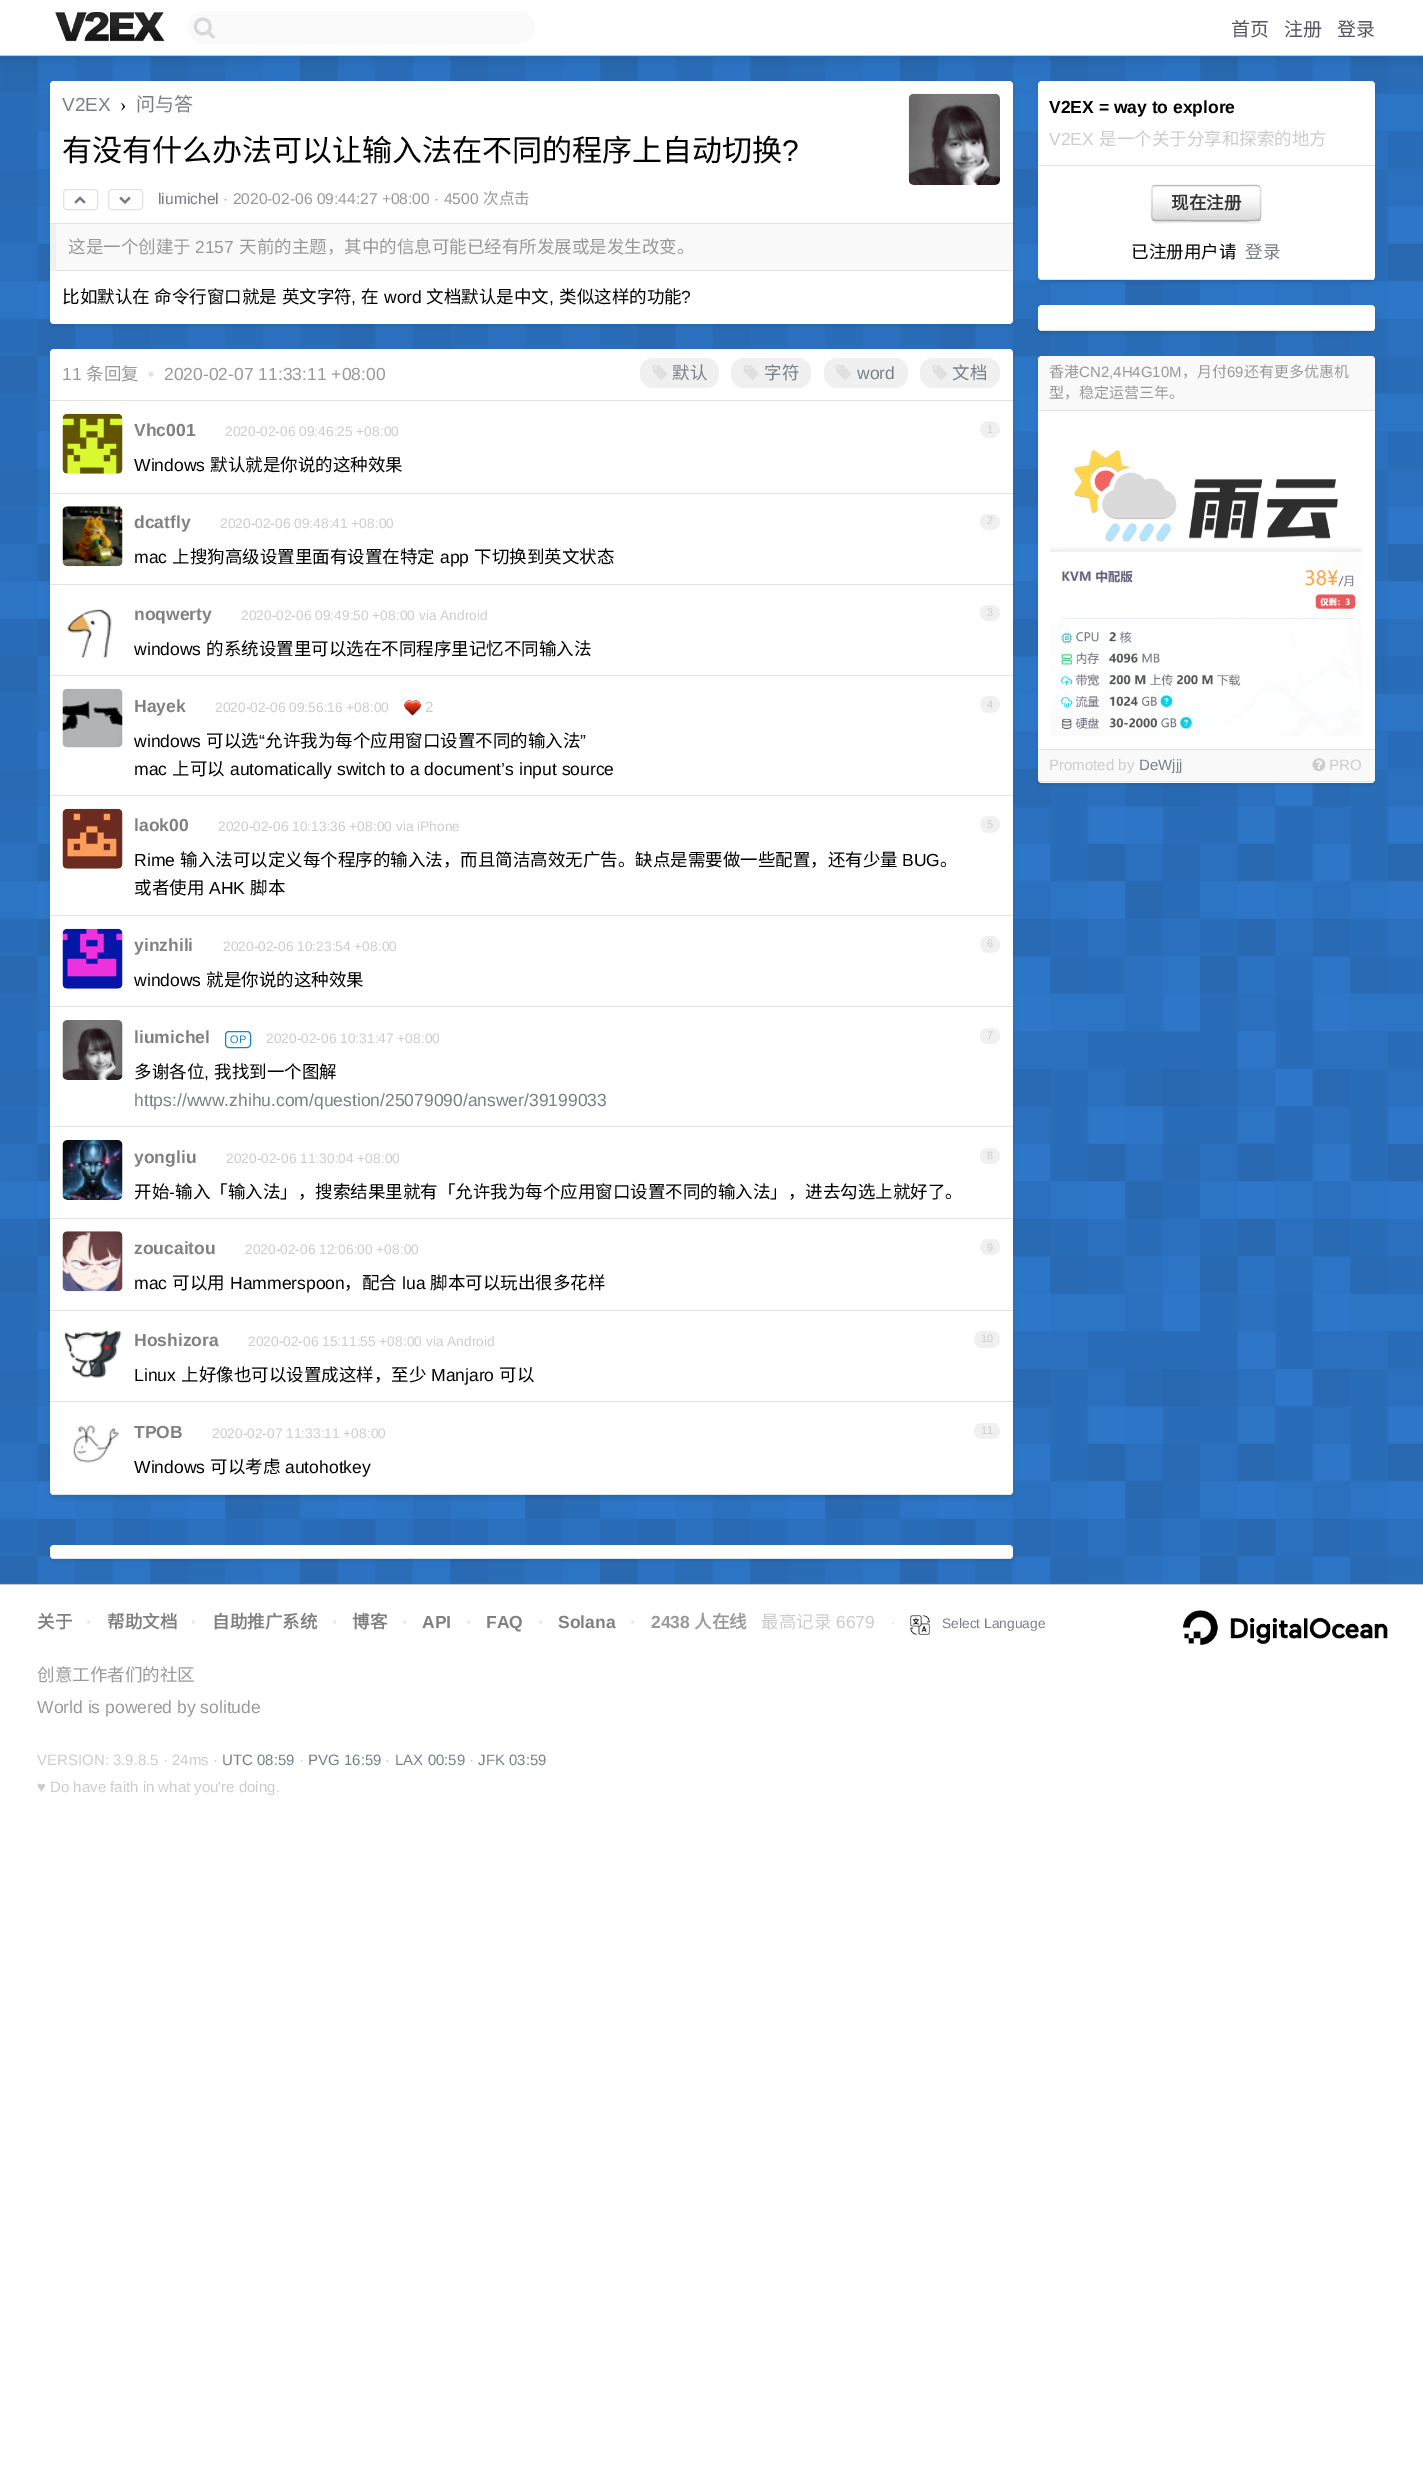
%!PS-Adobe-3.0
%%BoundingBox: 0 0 1423 2488
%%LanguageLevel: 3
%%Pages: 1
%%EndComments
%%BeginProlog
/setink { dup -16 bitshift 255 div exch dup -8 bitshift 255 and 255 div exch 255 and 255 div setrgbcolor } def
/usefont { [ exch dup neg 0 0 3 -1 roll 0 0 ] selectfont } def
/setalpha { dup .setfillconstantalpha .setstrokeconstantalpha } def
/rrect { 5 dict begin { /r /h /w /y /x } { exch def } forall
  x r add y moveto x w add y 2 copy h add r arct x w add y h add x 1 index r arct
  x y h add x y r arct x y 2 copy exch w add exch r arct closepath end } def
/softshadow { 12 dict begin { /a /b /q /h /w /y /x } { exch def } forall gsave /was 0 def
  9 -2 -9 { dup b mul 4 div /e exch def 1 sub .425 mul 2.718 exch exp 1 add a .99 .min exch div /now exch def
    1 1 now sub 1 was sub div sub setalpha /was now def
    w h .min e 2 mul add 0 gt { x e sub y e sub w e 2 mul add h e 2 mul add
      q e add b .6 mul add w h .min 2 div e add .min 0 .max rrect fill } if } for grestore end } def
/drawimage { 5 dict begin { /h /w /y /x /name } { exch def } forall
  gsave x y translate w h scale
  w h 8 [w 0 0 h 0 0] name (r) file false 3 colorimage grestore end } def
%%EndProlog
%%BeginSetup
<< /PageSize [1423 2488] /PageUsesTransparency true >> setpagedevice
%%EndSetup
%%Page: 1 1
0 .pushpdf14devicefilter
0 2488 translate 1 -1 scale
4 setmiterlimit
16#FFFFFF setink
0 0 1423 2488 rectfill
16#C7C7C7 setink
0 55 1423 1 rectfill
(img1.raw) 55 12 110 30 drawimage
16#FAFAFA setink
188 11 347 33 16.5 rrect fill
(img2.raw) 193 17 22 22 drawimage
/NotoSansCJKSC-Regular 19 usefont
16#555566 setink
[
    [(首页) 1231 36]
    [(注册) 1284 36]
    [(登录) 1337 36]
] { aload pop moveto show } forall
16#2D76C8 setink
0 56 1423 1528 rectfill
(img3.raw) 0 56 1423 1528 drawimage
16#000000 setink
50 84 963 242 4 2 0.1 softshadow
16#FFFFFF setink
50 81 963 243 4 rrect fill
16#E2E2E2 setink
50 223 963 1 rectfill
/LiberationSans-Regular 19 usefont
16#778087 setink
62 111 moveto (V2EX) show
/LiberationSerif-Regular 19 usefont
16#000000 setink
120 111 moveto (›) show
/NotoSansCJKSC-Regular 19 usefont
16#778087 setink
136 111 moveto (问与答) show
(img4.raw) 908 93 92 92 drawimage
/NotoSansCJKSC-Regular 30 usefont
16#000000 setink
62 161 moveto (有没有什么办法可以让输入法在不同的程序上自动切换) show
/LiberationSans-Regular 30 usefont
782 161 moveto (?) show
16#E2E2E2 setink
63.5 189.5 34 20 3.5 rrect stroke
(img5.raw) 74 196 12 8 drawimage
108.5 189.5 34 20 3.5 rrect stroke
(img6.raw) 119 196 12 8 drawimage
/LiberationSans-Regular 15.6 usefont
16#778087 setink
158 204 moveto (liumichel) show
16#999999 setink
223 204 moveto (· 2020-02-06 09:44:27 +08:00 · 4500) show
/NotoSansCJKSC-Regular 15.6 usefont
483 204 moveto (次点击) show
16#F9F9F9 setink
50 224 963 47 rectfill
16#E2E2E2 setink
1012 271 moveto 50 271 lineto 56 270 lineto 1012 270 lineto closepath fill
16#F0F0F0 setink
50 271 moveto 50 224 lineto 56 224 lineto 56 270 lineto closepath fill
/NotoSansCJKSC-Regular 17.5 usefont
16#999999 setink
68 253 moveto (这是一个创建于) show
/LiberationSans-Regular 17.5 usefont
195 253 moveto (2157) show
/NotoSansCJKSC-Regular 17.5 usefont
239 253 moveto (天前的主题，其中的信息可能已经有所发展或是发生改变。) show
16#000000 setink
62 303 moveto 1 0 32 (比如默认在 命令行窗口就是 英文字符) widthshow
361 303 moveto (在) show
/LiberationSans-Regular 17.5 usefont
384 303 moveto (word) show
/NotoSansCJKSC-Regular 17.5 usefont
426 303 moveto (文档默认是中文) show
559 303 moveto (类似这样的功能) show
/LiberationSans-Regular 17.5 usefont
[
    [(?) 681 303]
    [(,) 351 303]
    [(,) 549 303]
] { aload pop moveto show } forall
50 351 963 1147 4 2 0.1 softshadow
16#FFFFFF setink
50 349 963 1146 4 rrect fill
16#E2E2E2 setink
53 1494 958 1 rectfill
50 400 963 1 rectfill
16#999999 setink
62 380 moveto (11) show
/NotoSansCJKSC-Regular 17.5 usefont
86 380 moveto (条回复) show
/LiberationSans-Bold 17.5 usefont
16#E2E2E2 setink
148 380 moveto (•) show
/LiberationSans-Regular 17.5 usefont
16#999999 setink
164 380 moveto (2020-02-07 11:33:11 +08:00) show
16#F0F0F0 setink
640 358 79 30 13 rrect fill
(img7.raw) 652 365 15 15 drawimage
/NotoSansCJKSC-Regular 17.5 usefont
16#778087 setink
672 379 moveto (默认) show
16#F0F0F0 setink
731 358 80 30 13 rrect fill
(img8.raw) 743 365 16 15 drawimage
16#778087 setink
764 379 moveto (字符) show
16#F0F0F0 setink
824 358 84 30 13 rrect fill
(img9.raw) 836 365 15 15 drawimage
/LiberationSans-Regular 17.5 usefont
16#778087 setink
857 379 moveto (word) show
16#F0F0F0 setink
920 358 80 30 13 rrect fill
(img7.raw) 932 365 15 15 drawimage
/NotoSansCJKSC-Regular 17.5 usefont
16#778087 setink
952 379 moveto (文档) show
16#E2E2E2 setink
50 493 963 1 rectfill
(img10.raw) 62 413 61 61 drawimage
/LiberationSans-Bold 17.5 usefont
16#808080 setink
134 436 moveto (Vhc001) show
/LiberationSans-Regular 13.75 usefont
16#CCCCCC setink
225 436 moveto (2020-02-06 09:46:25 +08:00) show
16#F0F0F0 setink
980 421 20 17 8.5 rrect fill
/LiberationSans-Regular 11 usefont
16#CCCCCC setink
987 433 moveto (1) show
/LiberationSans-Regular 17.5 usefont
16#000000 setink
134 471 moveto (Windows) show
/NotoSansCJKSC-Regular 17.5 usefont
210 471 moveto (默认就是你说的这种效果) show
16#E2E2E2 setink
50 584 963 1 rectfill
(img11.raw) 62 506 61 61 drawimage
/LiberationSans-Bold 17.5 usefont
16#808080 setink
134 528 moveto (dcatfly) show
/LiberationSans-Regular 13.75 usefont
16#CCCCCC setink
220 528 moveto (2020-02-06 09:48:41 +08:00) show
16#F0F0F0 setink
980 514 20 16 8 rrect fill
/LiberationSans-Regular 11 usefont
16#CCCCCC setink
987 524 moveto (2) show
/LiberationSans-Regular 17.5 usefont
16#000000 setink
134 563 moveto (mac) show
/NotoSansCJKSC-Regular 17.5 usefont
172 563 moveto (上搜狗高级设置里面有设置在特定) show
/LiberationSans-Regular 17.5 usefont
440 563 moveto (app) show
/NotoSansCJKSC-Regular 17.5 usefont
474 563 moveto (下切换到英文状态) show
16#E2E2E2 setink
50 675 963 1 rectfill
(img12.raw) 67 609 45 49 drawimage
/LiberationSans-Bold 17.5 usefont
16#808080 setink
134 620 moveto (noqwerty) show
/LiberationSans-Regular 13.75 usefont
16#CCCCCC setink
241 620 moveto (2020-02-06 09:49:50 +08:00 via Android) show
16#F0F0F0 setink
980 605 20 16 8 rrect fill
/LiberationSans-Regular 11 usefont
16#CCCCCC setink
987 616 moveto (3) show
/LiberationSans-Regular 17.5 usefont
16#000000 setink
134 655 moveto (windows) show
/NotoSansCJKSC-Regular 17.5 usefont
206 655 moveto (的系统设置里可以选在不同程序里记忆不同输入法) show
16#E2E2E2 setink
50 795 963 1 rectfill
(img13.raw) 62 688 61 60 drawimage
/LiberationSans-Bold 17.5 usefont
16#808080 setink
134 712 moveto (Hayek) show
/LiberationSans-Regular 13.75 usefont
16#CCCCCC setink
215 712 moveto (2020-02-06 09:56:16 +08:00) show
(img14.raw) 404 700 17 16 drawimage
/LiberationSans-Regular 15 usefont
425 712 moveto (2) show
16#F0F0F0 setink
980 696 20 17 8.5 rrect fill
/LiberationSans-Regular 11 usefont
16#CCCCCC setink
987 708 moveto (4) show
/LiberationSans-Regular 17.5 usefont
16#000000 setink
134 747 moveto (windows) show
/NotoSansCJKSC-Regular 17.5 usefont
206 747 moveto (可以选) show
/LiberationSans-Regular 17.5 usefont
259 747 moveto (“) show
/NotoSansCJKSC-Regular 17.5 usefont
265 747 moveto (允许我为每个应用窗口设置不同的输入法) show
/LiberationSans-Regular 17.5 usefont
580 747 moveto (”) show
134 775 moveto (mac) show
/NotoSansCJKSC-Regular 17.5 usefont
172 775 moveto (上可以) show
/LiberationSans-Regular 17.5 usefont
230 775 moveto (automatically switch to a document’s input source) show
16#E2E2E2 setink
50 915 963 1 rectfill
(img15.raw) 62 808 61 61 drawimage
/LiberationSans-Bold 17.5 usefont
16#808080 setink
134 831 moveto (laok00) show
/LiberationSans-Regular 13.75 usefont
16#CCCCCC setink
218 831 moveto (2020-02-06 10:13:36 +08:00 via iPhone) show
16#F0F0F0 setink
980 816 20 17 8.5 rrect fill
/LiberationSans-Regular 11 usefont
16#CCCCCC setink
987 828 moveto (5) show
/LiberationSans-Regular 17.5 usefont
16#000000 setink
134 866 moveto (Rime) show
/NotoSansCJKSC-Regular 17.5 usefont
180 866 moveto (输入法可以定义每个程序的输入法，而且简洁高效无广告。缺点是需要做一些配置，还有少量) show
/LiberationSans-Regular 17.5 usefont
902 866 moveto (BUG) show
/NotoSansCJKSC-Regular 17.5 usefont
940 866 moveto (。) show
134 894 moveto (或者使用) show
/LiberationSans-Regular 17.5 usefont
209 894 moveto (AHK) show
/NotoSansCJKSC-Regular 17.5 usefont
250 894 moveto (脚本) show
16#E2E2E2 setink
50 1006 963 1 rectfill
(img16.raw) 62 928 61 61 drawimage
/LiberationSans-Bold 17.5 usefont
16#808080 setink
134 951 moveto (yinzhili) show
/LiberationSans-Regular 13.75 usefont
16#CCCCCC setink
223 951 moveto (2020-02-06 10:23:54 +08:00) show
16#F0F0F0 setink
980 936 20 17 8.5 rrect fill
/LiberationSans-Regular 11 usefont
16#CCCCCC setink
987 947 moveto (6) show
/LiberationSans-Regular 17.5 usefont
16#000000 setink
134 986 moveto (windows) show
/NotoSansCJKSC-Regular 17.5 usefont
206 986 moveto (就是你说的这种效果) show
16#E2E2E2 setink
50 1126 963 1 rectfill
(img17.raw) 62 1020 61 60 drawimage
/LiberationSans-Bold 17.5 usefont
16#808080 setink
134 1043 moveto (liumichel) show
16#1484CD setink
225.5 1031.5 25 16 3.5 rrect stroke
/LiberationSans-Regular 11 usefont
230 1043 moveto (OP) show
/LiberationSans-Regular 13.75 usefont
16#CCCCCC setink
266 1043 moveto (2020-02-06 10:31:47 +08:00) show
16#F0F0F0 setink
980 1028 20 16 8 rrect fill
/LiberationSans-Regular 11 usefont
16#CCCCCC setink
987 1039 moveto (7) show
/NotoSansCJKSC-Regular 17.5 usefont
16#000000 setink
134 1078 moveto (多谢各位) show
/LiberationSans-Regular 17.5 usefont
204 1078 moveto (,) show
/NotoSansCJKSC-Regular 17.5 usefont
214 1078 moveto (我找到一个图解) show
/LiberationSans-Regular 17.5 usefont
16#778087 setink
134 1106 moveto (https://www.zhihu.com/question/25079090/answer/39199033) show
16#E2E2E2 setink
50 1218 963 1 rectfill
(img18.raw) 62 1140 61 60 drawimage
/LiberationSans-Bold 17.5 usefont
16#808080 setink
134 1163 moveto (yongliu) show
/LiberationSans-Regular 13.75 usefont
16#CCCCCC setink
226 1163 moveto (2020-02-06 11:30:04 +08:00) show
16#F0F0F0 setink
980 1148 20 16 8 rrect fill
/LiberationSans-Regular 11 usefont
16#CCCCCC setink
987 1159 moveto (8) show
/NotoSansCJKSC-Regular 17.5 usefont
16#000000 setink
134 1198 moveto (开始) show
/LiberationSans-Regular 17.5 usefont
169 1198 moveto (-) show
/NotoSansCJKSC-Regular 17.5 usefont
175 1198 moveto (输入「输入法」，搜索结果里就有「允许我为每个应用窗口设置不同的输入法」，进去勾选上就好了。) show
16#E2E2E2 setink
50 1310 963 1 rectfill
(img19.raw) 62 1231 61 61 drawimage
/LiberationSans-Bold 17.5 usefont
16#808080 setink
134 1254 moveto (zoucaitou) show
/LiberationSans-Regular 13.75 usefont
16#CCCCCC setink
245 1254 moveto (2020-02-06 12:06:00 +08:00) show
16#F0F0F0 setink
980 1239 20 16 8 rrect fill
/LiberationSans-Regular 11 usefont
16#CCCCCC setink
987 1251 moveto (9) show
/LiberationSans-Regular 17.5 usefont
16#000000 setink
134 1289 moveto (mac) show
/NotoSansCJKSC-Regular 17.5 usefont
172 1289 moveto (可以用) show
/LiberationSans-Regular 17.5 usefont
230 1289 moveto (Hammerspoon) show
/NotoSansCJKSC-Regular 17.5 usefont
344 1289 moveto (，配合) show
/LiberationSans-Regular 17.5 usefont
402 1289 moveto (lua) show
/NotoSansCJKSC-Regular 17.5 usefont
430 1289 moveto (脚本可以玩出很多花样) show
16#E2E2E2 setink
50 1401 963 1 rectfill
(img20.raw) 64 1330 58 48 drawimage
/LiberationSans-Bold 17.5 usefont
16#808080 setink
134 1346 moveto (Hoshizora) show
/LiberationSans-Regular 13.75 usefont
16#CCCCCC setink
248 1346 moveto (2020-02-06 15:11:55 +08:00 via Android) show
16#F0F0F0 setink
974 1331 26 17 8.5 rrect fill
/LiberationSans-Regular 11 usefont
16#CCCCCC setink
981 1342 moveto (10) show
/LiberationSans-Regular 17.5 usefont
16#000000 setink
134 1381 moveto (Linux) show
/NotoSansCJKSC-Regular 17.5 usefont
181 1381 moveto (上好像也可以设置成这样，至少) show
/LiberationSans-Regular 17.5 usefont
431 1381 moveto (Manjaro) show
/NotoSansCJKSC-Regular 17.5 usefont
499 1381 moveto (可以) show
(img21.raw) 73 1425 46 38 drawimage
/LiberationSans-Bold 17.5 usefont
16#808080 setink
134 1438 moveto (TPOB) show
/LiberationSans-Regular 13.75 usefont
16#CCCCCC setink
212 1438 moveto (2020-02-07 11:33:11 +08:00) show
16#F0F0F0 setink
974 1423 26 16 8 rrect fill
/LiberationSans-Regular 11 usefont
16#CCCCCC setink
981 1434 moveto (11) show
/LiberationSans-Regular 17.5 usefont
16#000000 setink
134 1473 moveto (Windows) show
/NotoSansCJKSC-Regular 17.5 usefont
210 1473 moveto (可以考虑) show
/LiberationSans-Regular 17.5 usefont
285 1473 moveto (autohotkey) show
50 1548 963 13 4 2 0.1 softshadow
16#FFFFFF setink
50 1545 963 14 4 rrect fill
16#E2E2E2 setink
53 1558 958 1 rectfill
16#000000 setink
1038 84 337 199 4 2 0.1 softshadow
16#FFFFFF setink
1038 81 337 199 4 rrect fill
16#E2E2E2 setink
1040 279 334 1 rectfill
1038 165 337 1 rectfill
/LiberationSans-Bold 17.5 usefont
16#000000 setink
1049 113 moveto (V2EX = way to explore) show
/LiberationSans-Regular 17.5 usefont
16#CCCCCC setink
1049 145 moveto (V2EX) show
/NotoSansCJKSC-Regular 17.5 usefont
1099 145 moveto (是一个关于分享和探索的地方) show
16#ECECED setink
1151 189 moveto 1151 209 lineto 1151 227 1151 223 1172 223 curveto 1240 223 lineto 1248 223 1261 226 1261 219 curveto 1259 221 lineto 1254 224 1247 221 1240 221 curveto 1155 221 lineto 1152 220 lineto 1150 218 1151 193 1151 189 curveto closepath fill
16#FFFFFF setink
1151 185 110 36 4 rrect fill
(img22.raw) 1151 185 110 36 drawimage
16#A8A8AC setink
1.2 setlinewidth
1259.5 219.5 moveto 1259 220 lineto 1257 221.5 1181.5 220.5 1172 220.5 curveto 1155 220.5 lineto 1153 219.5 lineto stroke
0.2 setalpha
16#50505A setink
1153 219.5 moveto 1150.5 217.5 1152 210.5 1152 208 curveto 1152 193.5 lineto 1152 191 1151 185.5 1155 185.5 curveto 1240.5 185.5 lineto 1264 185.5 1260.5 181.5 1260.5 203 curveto 1260.5 206 1262 217.5 1259.5 219.5 curveto stroke
/NotoSansCJKSC-Bold 17.5 usefont
1 setalpha
16#333333 setink
1171 209 moveto (现在注册) show
/NotoSansCJKSC-Regular 17.5 usefont
16#000000 setink
1131 258 moveto (已注册用户请) show
16#778087 setink
1245 258 moveto (登录) show
16#000000 setink
1038 308 337 26 4 2 0.1 softshadow
16#FFFFFF setink
1038 305 337 26 4 rrect fill
16#E2E2E2 setink
1040 330 334 1 rectfill
16#000000 setink
1038 359 337 426 4 2 0.1 softshadow
16#FFFFFF setink
1038 356 337 427 4 rrect fill
16#E2E2E2 setink
1040 781 334 1 rectfill
16#F9F9F9 setink
1042 356 moveto 1371 356 lineto 1373 356 1375 358 1375 360 curveto 1375 411 lineto 1038 411 lineto 1038 360 lineto 1038 358 1040 356 1042 356 curveto closepath fill
16#E2E2E2 setink
1038 410 337 1 rectfill
/NotoSansCJKSC-Regular 15 usefont
16#999999 setink
1049 377 moveto (香港) show
/LiberationSans-Regular 15 usefont
1079 377 moveto (CN2,4H4G10M) show
/NotoSansCJKSC-Regular 15 usefont
1182 377 moveto (，月付) show
/LiberationSans-Regular 15 usefont
1227 377 moveto (69) show
/NotoSansCJKSC-Regular 15 usefont
1244 377 moveto (还有更多优惠机) show
1049 398 moveto (型，稳定运营三年。) show
16#E2E2E2 setink
1038 749 337 1 rectfill
(img23.raw) 1050 450 313 286 drawimage
16#F9F9F9 setink
1038 750 moveto 1375 750 lineto 1375 777 lineto 1375 779 1373 781 1371 781 curveto 1042 781 lineto 1040 781 1038 779 1038 777 curveto closepath fill
/LiberationSans-Regular 15 usefont
16#CCCCCC setink
1049 770 moveto (Promoted by) show
16#778087 setink
1139 770 moveto (DeWjjj) show
(img24.raw) 1312 758 14 13 drawimage
16#CCCCCC setink
1329 770 moveto (PRO) show
16#C7C7C7 setink
0 1584 1423 1 rectfill
/NotoSansCJKSC-Bold 17.5 usefont
16#808080 setink
37 1628 moveto (关于) show
/LiberationSans-Bold 17.5 usefont
16#E2E2E2 setink
86 1628 moveto (·) show
/NotoSansCJKSC-Bold 17.5 usefont
16#808080 setink
107 1628 moveto (帮助文档) show
/LiberationSans-Bold 17.5 usefont
16#E2E2E2 setink
191 1628 moveto (·) show
/NotoSansCJKSC-Bold 17.5 usefont
16#808080 setink
212 1628 moveto (自助推广系统) show
/LiberationSans-Bold 17.5 usefont
16#E2E2E2 setink
332 1628 moveto (·) show
/NotoSansCJKSC-Bold 17.5 usefont
16#808080 setink
352 1628 moveto (博客) show
/LiberationSans-Bold 17.5 usefont
16#E2E2E2 setink
402 1628 moveto (·) show
16#808080 setink
422 1628 moveto (API) show
16#E2E2E2 setink
466 1628 moveto (·) show
16#808080 setink
486 1628 moveto (FAQ) show
16#E2E2E2 setink
538 1628 moveto (·) show
16#808080 setink
558 1628 moveto (Solana) show
16#E2E2E2 setink
630 1628 moveto (·) show
16#999999 setink
651 1628 moveto (2438) show
/NotoSansCJKSC-Bold 17.5 usefont
694 1628 moveto (人在线) show
/NotoSansCJKSC-Regular 17.5 usefont
16#CCCCCC setink
761 1628 moveto (最高记录) show
/LiberationSans-Regular 17.5 usefont
836 1628 moveto (6679) show
16#E2E2E2 setink
890 1628 moveto (·) show
(img25.raw) 910 1615 20 20 drawimage
/LiberationSans-Regular 13.75 usefont
16#778087 setink
942 1628 moveto (Select Language) show
(img26.raw) 1183 1610 205 35 drawimage
/NotoSansCJKSC-Regular 17.5 usefont
16#999999 setink
37 1681 moveto (创意工作者们的社区) show
/LiberationSans-Regular 17.5 usefont
37 1713 moveto (World is powered by solitude) show
/LiberationSans-Regular 15 usefont
16#CCCCCC setink
37 1765 moveto (VERSION: 3.9.8.5 · 24ms ·) show
16#778087 setink
222 1765 moveto (UTC 08:59) show
16#CCCCCC setink
299 1765 moveto (·) show
16#778087 setink
308 1765 moveto (PVG 16:59) show
16#CCCCCC setink
385 1765 moveto (·) show
16#778087 setink
395 1765 moveto (LAX 00:59) show
16#CCCCCC setink
469 1765 moveto (·) show
16#778087 setink
478 1765 moveto (JFK 03:59) show
16#CCCCCC setink
37 1792 moveto (♥ Do have faith in what you're doing.) show
.poppdf14devicefilter showpage
%%EOF
